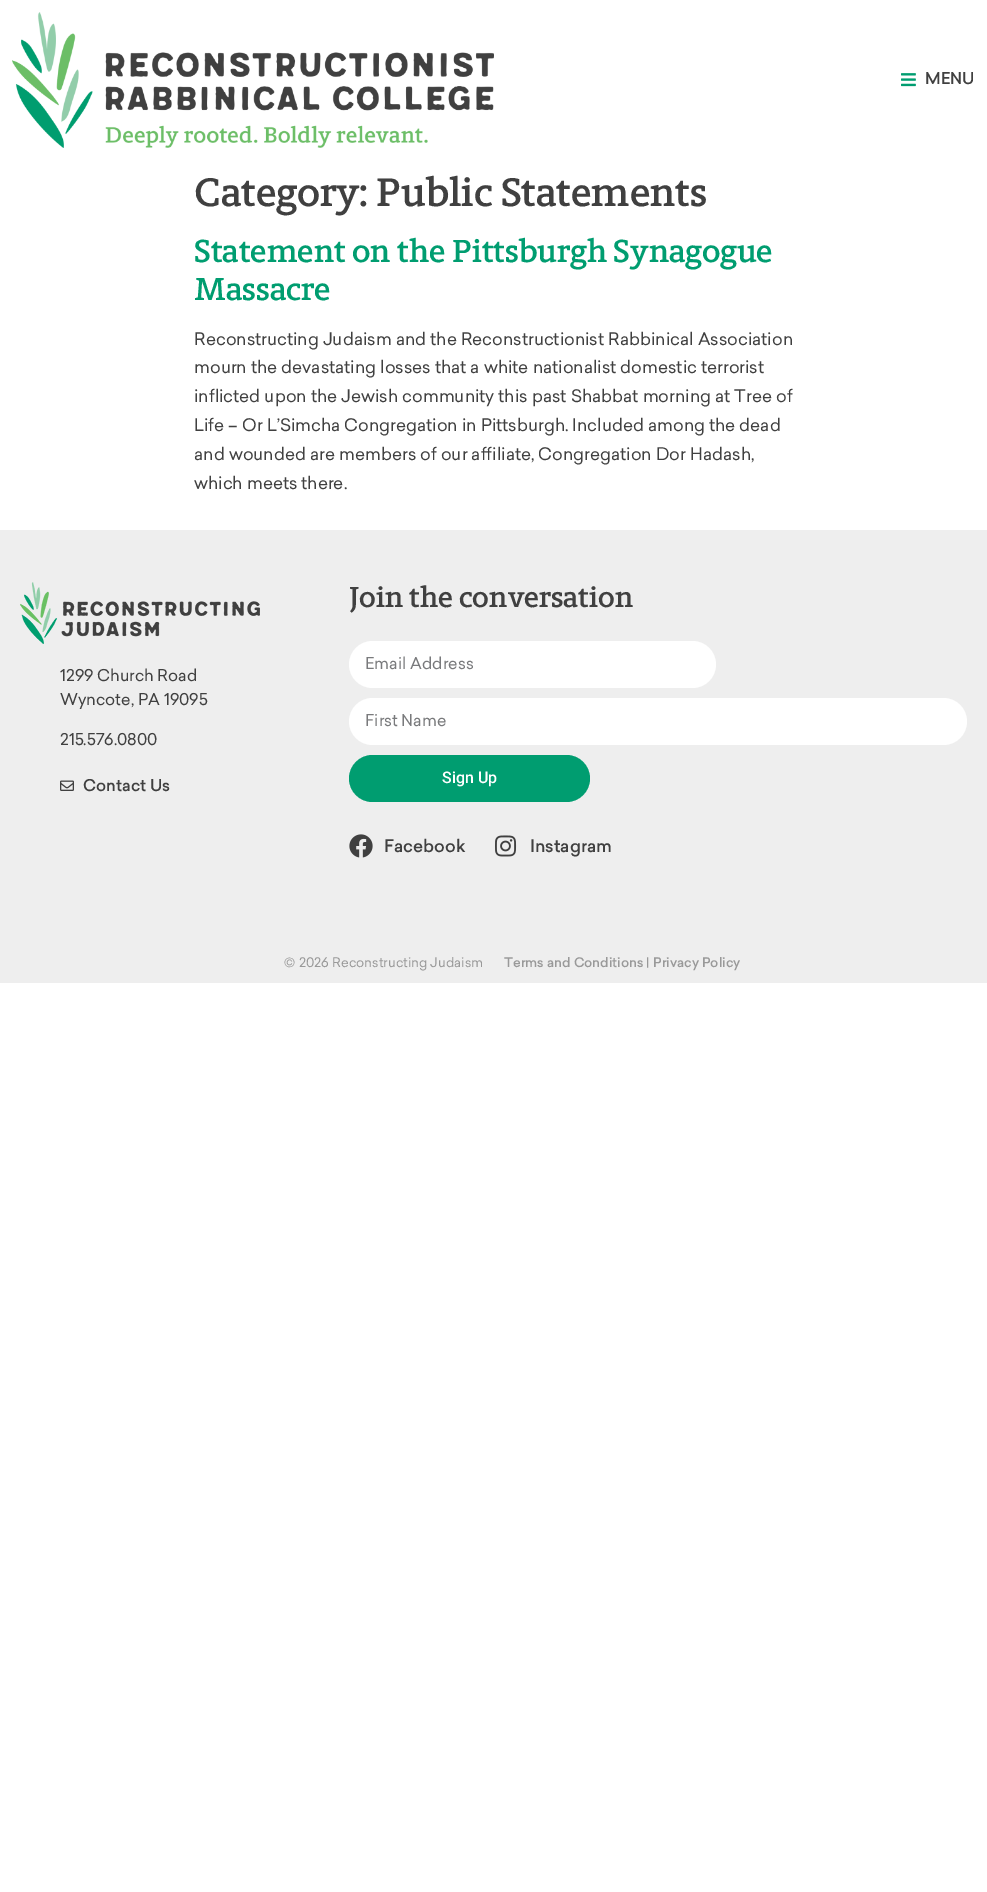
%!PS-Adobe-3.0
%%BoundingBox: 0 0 987 1892
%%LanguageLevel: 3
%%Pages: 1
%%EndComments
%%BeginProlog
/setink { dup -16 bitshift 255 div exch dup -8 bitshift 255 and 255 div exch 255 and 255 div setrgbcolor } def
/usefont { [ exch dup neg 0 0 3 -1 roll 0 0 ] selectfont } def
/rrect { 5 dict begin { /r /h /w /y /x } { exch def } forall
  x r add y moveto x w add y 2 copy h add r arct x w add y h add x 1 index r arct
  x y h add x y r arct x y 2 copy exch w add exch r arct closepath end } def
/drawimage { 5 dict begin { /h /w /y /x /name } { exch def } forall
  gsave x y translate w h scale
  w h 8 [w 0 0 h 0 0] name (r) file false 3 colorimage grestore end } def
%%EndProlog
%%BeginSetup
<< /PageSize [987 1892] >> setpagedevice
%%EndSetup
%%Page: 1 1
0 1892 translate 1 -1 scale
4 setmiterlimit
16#FFFFFF setink
0 0 987 1892 rectfill
(img1.raw) 12 12 482 136 drawimage
(img2.raw) 901 73 15 14 drawimage
/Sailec-Medium 16 usefont
16#404040 setink
925 84 moveto (MENU) show
/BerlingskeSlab-SemiBold 40 usefont
194 206 moveto (Category: Public Statements) show
/BerlingskeSlab-SemiBold 32 usefont
16#009D70 setink
194 262 moveto (Statement on the Pittsburgh Synagogue) show
194 300 moveto (Massacre) show
/Sailec-Regular 17 usefont
16#404040 setink
[
    [(Reconstructing Judaism and the Reconstructionist Rabbinical Association) 194 345]
    [(mourn the devastating losses that a white nationalist domestic terrorist) 194 373]
    [(inflicted upon the Jewish community this past Shabbat morning at Tree of) 194 402]
    [(Life – Or L’Simcha Congregation in Pittsburgh. Included among the dead) 194 431]
    [(and wounded are members of our affiliate, Congregation Dor Hadash,) 194 460]
    [(which meets there.) 194 489]
] { aload pop moveto show } forall
16#EEEEEE setink
0 530 987 453 rectfill
(img3.raw) 20 582 240 62 drawimage
/Sailec-Regular 16 usefont
16#404040 setink
[
    [(1299 Church Road) 60 681]
    [(Wyncote, PA 19095) 60 705]
    [(215.576.0800) 60 745]
] { aload pop moveto show } forall
(img4.raw) 60 780 14 11 drawimage
/Sailec-Medium 16 usefont
83 791 moveto (Contact Us) show
/BerlingskeSlab-SemiBold 29 usefont
349 607 moveto (Join the conversation) show
16#FFFFFF setink
349 641 367 47 23.5 rrect fill
/Sailec-Regular 16 usefont
16#797A7C setink
365 669 moveto (Email Address) show
16#FFFFFF setink
349 698 618 47 23.5 rrect fill
16#797A7C setink
365 726 moveto (First Name) show
16#009D70 setink
349 755 241 47 23.5 rrect fill
/Roboto-Medium 16 usefont
16#FFFFFF setink
442 783 moveto (Sign Up) show
(img5.raw) 349 834 24 24 drawimage
/Sailec-Medium 17 usefont
16#404040 setink
384 852 moveto (Facebook) show
(img6.raw) 495 835 22 22 drawimage
530 852 moveto (Instagram) show
/Sailec-Regular 19 usefont
16#999999 setink
284 972 moveto (©) show
/Sailec-Regular 13 usefont
299 967 moveto (2026 Reconstructing Judaism) show
/Sailec-Medium 13 usefont
504 967 moveto (Terms and Conditions) show
/Sailec-Regular 13 usefont
646 967 moveto (|) show
/Sailec-Medium 13 usefont
653 967 moveto (Privacy Policy) show
showpage
%%EOF
